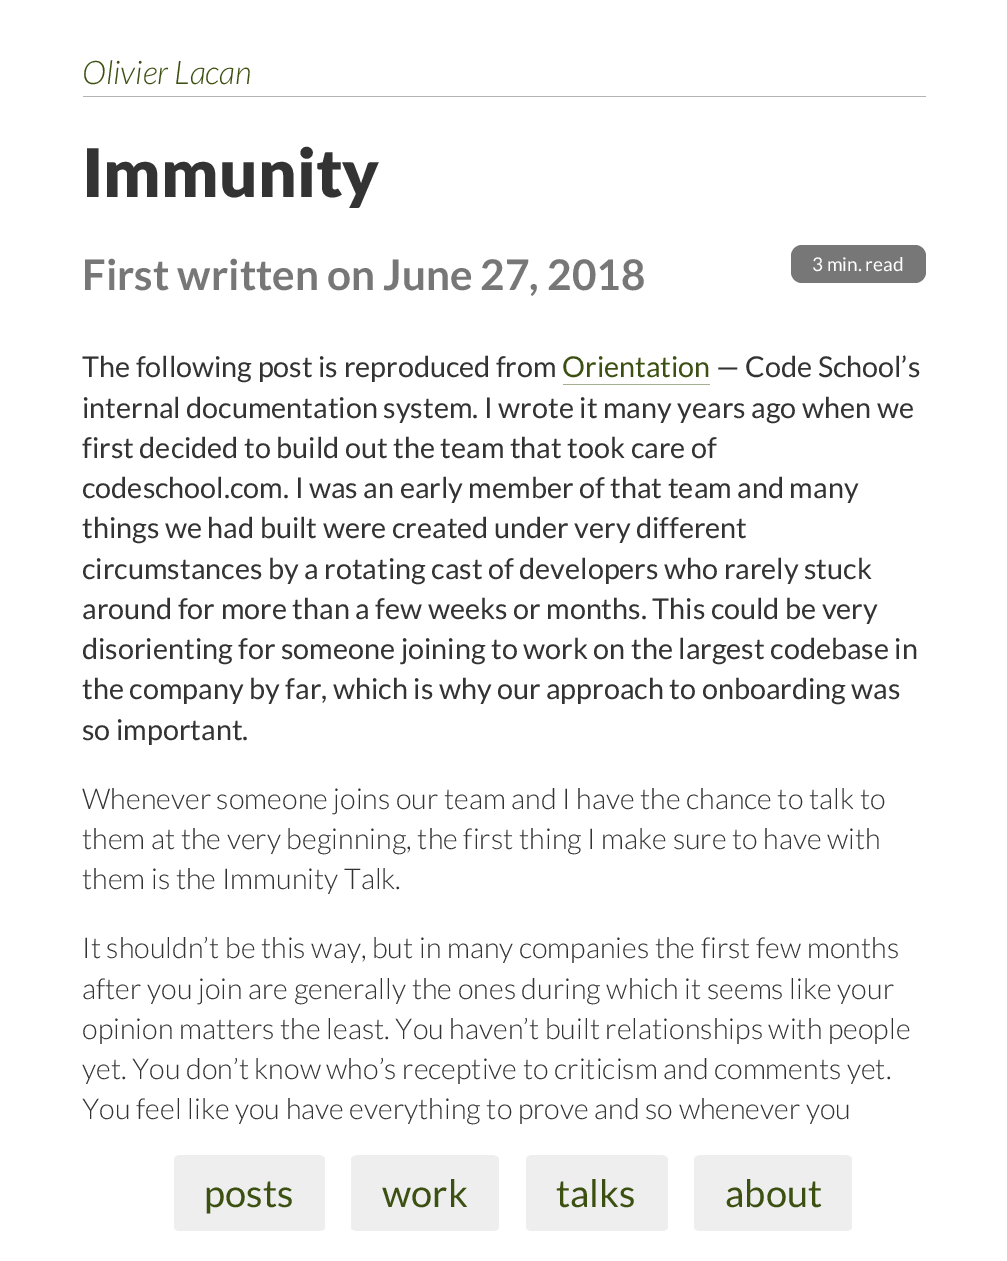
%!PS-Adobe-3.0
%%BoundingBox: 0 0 1007 1261
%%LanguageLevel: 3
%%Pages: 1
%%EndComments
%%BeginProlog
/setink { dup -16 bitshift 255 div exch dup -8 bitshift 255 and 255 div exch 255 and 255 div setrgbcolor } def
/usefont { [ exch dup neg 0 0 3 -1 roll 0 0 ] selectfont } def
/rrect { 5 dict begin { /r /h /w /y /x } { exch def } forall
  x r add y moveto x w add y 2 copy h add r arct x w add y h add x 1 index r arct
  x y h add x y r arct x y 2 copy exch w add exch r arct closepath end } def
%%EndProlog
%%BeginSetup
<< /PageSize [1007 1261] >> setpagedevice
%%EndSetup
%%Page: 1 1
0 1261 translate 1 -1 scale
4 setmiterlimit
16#FFFFFF setink
0 0 1007 1261 rectfill
16#B3B3B3 setink
83 96 843 1 rectfill
/Lato-LightItalic 32.5 usefont
16#3C5011 setink
82 84 moveto (Olivier Lacan) show
16#EEEEEE setink
181 1155 moveto 317 1155 lineto 322 1155 325 1157 325 1159 curveto 325 1227 lineto 325 1230 322 1231 317 1231 curveto 181 1231 lineto 177 1231 174 1230 174 1227 curveto 174 1159 lineto 174 1157 177 1155 181 1155 curveto closepath fill
/Lato-Regular 38 usefont
16#3C5011 setink
204 1207 moveto (posts) show
16#EEEEEE setink
359 1155 moveto 491 1155 lineto 495 1155 499 1157 499 1159 curveto 499 1227 lineto 499 1230 495 1231 491 1231 curveto 359 1231 lineto 355 1231 351 1230 351 1227 curveto 351 1159 lineto 351 1157 355 1155 359 1155 curveto closepath fill
16#3C5011 setink
382 1207 moveto (work) show
16#EEEEEE setink
533 1155 moveto 660 1155 lineto 664 1155 668 1157 668 1159 curveto 668 1227 lineto 668 1230 664 1231 660 1231 curveto 533 1231 lineto 529 1231 526 1230 526 1227 curveto 526 1159 lineto 526 1157 529 1155 533 1155 curveto closepath fill
16#3C5011 setink
556 1207 moveto (talks) show
16#EEEEEE setink
702 1155 moveto 845 1155 lineto 849 1155 852 1157 852 1159 curveto 852 1227 lineto 852 1230 849 1231 845 1231 curveto 702 1231 lineto 697 1231 694 1230 694 1227 curveto 694 1159 lineto 694 1157 697 1155 702 1155 curveto closepath fill
16#3C5011 setink
725 1207 moveto (about) show
/Lato-Black 67 usefont
16#333333 setink
82 197 moveto (Immunity) show
/Lato-Bold 42.25 usefont
16#777777 setink
82 290 moveto (First written on June 27, 2018) show
791 245 135 38 11 rrect fill
/Lato-Regular 19 usefont
16#FFFFFF setink
812 271 moveto (3 min. read) show
/Lato-Regular 28.75 usefont
16#333333 setink
82 377 moveto (The following post is reproduced from) show
16#3C5011 setink
562 377 moveto (Orientation) show
16#A5AF92 setink
563 384 147 1 rectfill
16#333333 setink
[
    [(— Code School’s) 716 377]
    [(internal documentation system. I wrote it many years ago when we) 82 418]
    [(first decided to build out the team that took care of) 82 458]
    [(codeschool.com. I was an early member of that team and many) 82 498]
    [(things we had built were created under very different) 82 538]
    [(circumstances by a rotating cast of developers who rarely stuck) 82 579]
    [(around for more than a few weeks or months. This could be very) 82 619]
    [(disorienting for someone joining to work on the largest codebase in) 82 659]
    [(the company by far, which is why our approach to onboarding was) 82 699]
    [(so important.) 82 740]
] { aload pop moveto show } forall
/Lato-Light 28.75 usefont
[
    [(Whenever someone joins our team and I have the chance to talk to) 82 809]
    [(them at the very beginning, the first thing I make sure to have with) 82 849]
    [(them is the Immunity Talk.) 82 889]
    [(It shouldn’t be this way, but in many companies the first few months) 82 958]
    [(after you join are generally the ones during which it seems like your) 82 999]
    [(opinion matters the least. You haven’t built relationships with people) 82 1039]
    [(yet. You don’t know who’s receptive to criticism and comments yet.) 82 1079]
    [(You feel like you have everything to prove and so whenever you) 82 1119]
] { aload pop moveto show } forall
showpage
%%EOF
